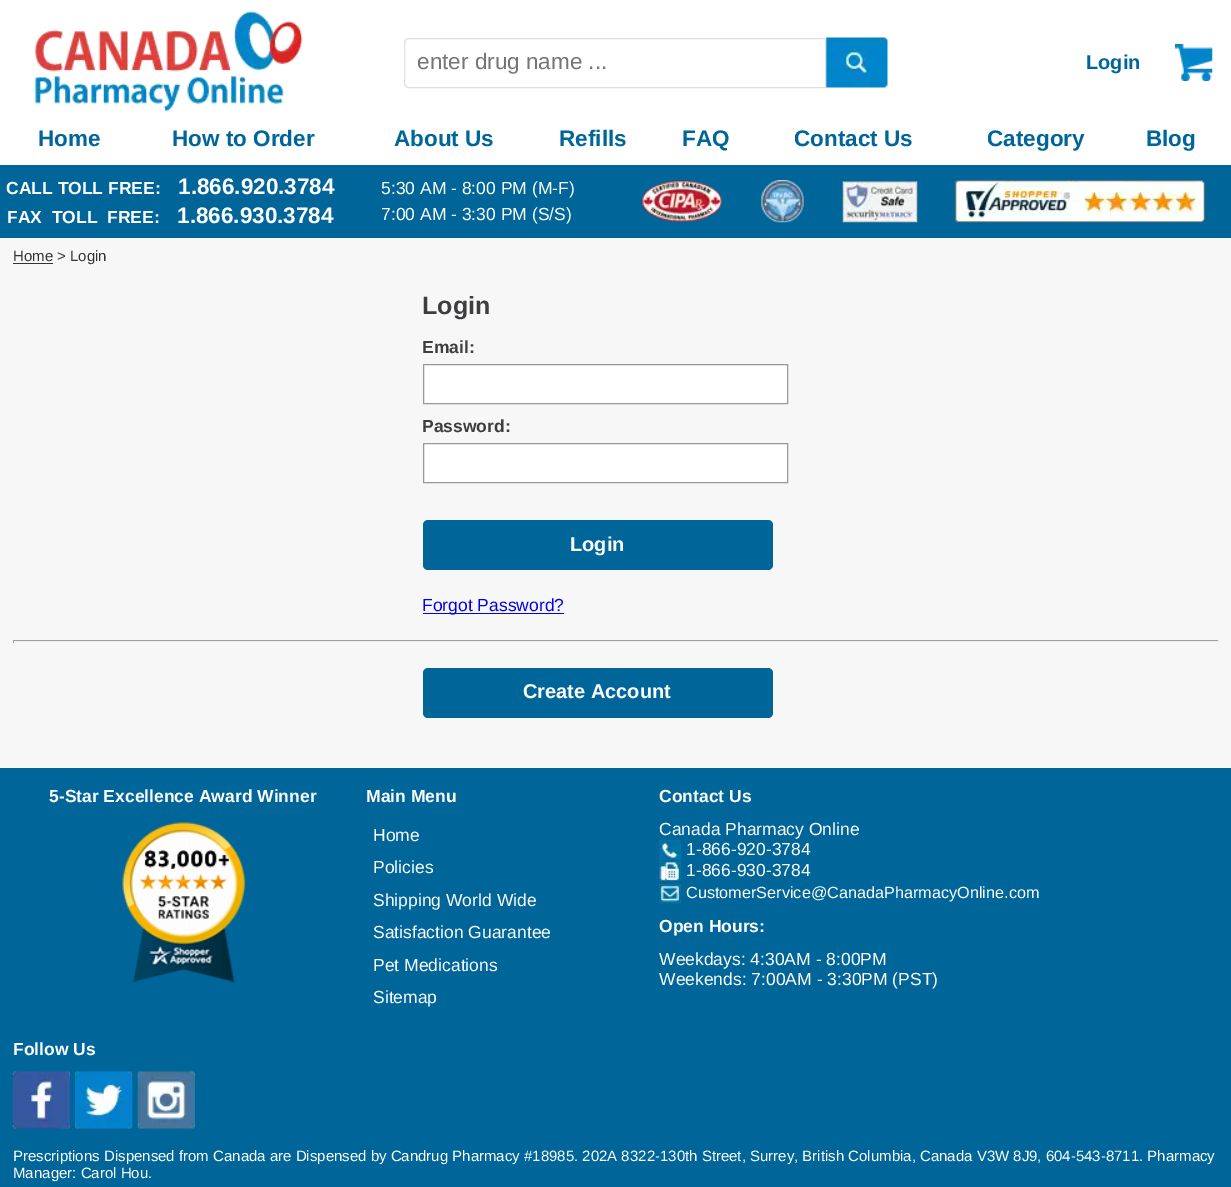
%!PS-Adobe-3.0
%%BoundingBox: 0 0 1231 1187
%%LanguageLevel: 3
%%Pages: 1
%%EndComments
%%BeginProlog
/setink { dup -16 bitshift 255 div exch dup -8 bitshift 255 and 255 div exch 255 and 255 div setrgbcolor } def
/usefont { [ exch dup neg 0 0 3 -1 roll 0 0 ] selectfont } def
/rrect { 5 dict begin { /r /h /w /y /x } { exch def } forall
  x r add y moveto x w add y 2 copy h add r arct x w add y h add x 1 index r arct
  x y h add x y r arct x y 2 copy exch w add exch r arct closepath end } def
/drawimage { 5 dict begin { /h /w /y /x /name } { exch def } forall
  gsave x y translate w h scale
  w h 8 [w 0 0 h 0 0] name (r) file false 3 colorimage grestore end } def
%%EndProlog
%%BeginSetup
<< /PageSize [1231 1187] >> setpagedevice
%%EndSetup
%%Page: 1 1
0 1187 translate 1 -1 scale
4 setmiterlimit
16#F7F7F7 setink
0 0 1231 1187 rectfill
16#FFFFFF setink
0 0 1231 165 rectfill
(img1.raw) 34 11 269 101 drawimage
16#E0E0E0 setink
409 38.5 moveto 825.5 38.5 lineto 825.5 87.5 lineto 409 87.5 lineto 406.5 87.5 404.5 85.5 404.5 83 curveto 404.5 43 lineto 404.5 40.5 406.5 38.5 409 38.5 curveto closepath stroke
/LiberationSans-Regular 22.5 usefont
16#757575 setink
417 69 moveto (enter drug name ...) show
(img2.raw) 826 37 62 51 drawimage
/LiberationSans-Bold 20 usefont
16#006699 setink
1086 69 moveto (Login) show
(img3.raw) 1175 43 38 39 drawimage
/LiberationSans-Bold 22.5 usefont
[
    [(Home) 38 146]
    [(How to Order) 172 146]
    [(About Us) 394 146]
    [(Refills) 559 146]
    [(FAQ) 682 146]
    [(Contact Us) 794 146]
    [(Category) 987 146]
    [(Blog) 1146 146]
] { aload pop moveto show } forall
0 165 1231 73 rectfill
/LiberationSans-Bold 17.5 usefont
16#FFFFFF setink
6 194 moveto (CALL TOLL FREE:) show
/LiberationSans-Bold 22.5 usefont
178 194 moveto (1.866.920.3784) show
/LiberationSans-Bold 17.5 usefont
7 223 moveto (FAX  TOLL  FREE:) show
/LiberationSans-Bold 22.5 usefont
177 223 moveto (1.866.930.3784) show
/LiberationSans-Regular 17.5 usefont
381 194 moveto (5:30 AM - 8:00 PM \(M-F\)) show
381 220 moveto (7:00 AM - 3:30 PM \(S/S\)) show
(img4.raw) 641 180 82 43 drawimage
(img5.raw) 761 180 43 43 drawimage
(img6.raw) 842 181 76 42 drawimage
(img7.raw) 955 180 250 43 drawimage
16#333333 setink
13 263 40 1 rectfill
/LiberationSans-Regular 15 usefont
13 261 moveto (Home > Login) show
/LiberationSans-Bold 25 usefont
16#3D3E40 setink
422 314 moveto (Login) show
/LiberationSans-Bold 17.5 usefont
422 353 moveto (Email:) show
16#FFFFFF setink
423.5 364.5 moveto 787.5 364.5 lineto 787.5 403.5 lineto 423.5 403.5 lineto closepath gsave fill grestore
16#999999 setink
stroke
16#3D3E40 setink
422 432 moveto (Password:) show
16#FFFFFF setink
423.5 443.5 moveto 787.5 443.5 lineto 787.5 482.5 lineto 423.5 482.5 lineto closepath gsave fill grestore
16#999999 setink
stroke
16#006699 setink
423 520 350 50 5 rrect fill
/LiberationSans-Bold 20 usefont
16#FFFFFF setink
570 551 moveto (Login) show
16#0000EE setink
423 613 141 1 rectfill
/LiberationSans-Regular 17.5 usefont
422 611 moveto (Forgot Password?) show
[
    [13 640 1206 1 16#9F9F9F]
    [1218 640 1 3 16#EEEEEE]
    [13 641 1206 1 16#EEEEEE]
    [13 640 1 3 16#9F9F9F]
] { aload pop setink rectfill } forall
16#006699 setink
423 668 350 50 5 rrect fill
/LiberationSans-Bold 20 usefont
16#FFFFFF setink
523 698 moveto (Create Account) show
16#006699 setink
0 768 1231 419 rectfill
/LiberationSans-Bold 17.5 usefont
16#FFFFFF setink
49 802 moveto (5-Star Excellence Award Winner) show
(img8.raw) 122 822 124 161 drawimage
366 802 moveto (Main Menu) show
/LiberationSans-Regular 17.5 usefont
[
    [(Home) 373 841]
    [(Policies) 373 873]
    [(Shipping World Wide) 373 906]
    [(Satisfaction Guarantee) 373 938]
    [(Pet Medications) 373 971]
    [(Sitemap) 373 1003]
] { aload pop moveto show } forall
/LiberationSans-Bold 17.5 usefont
659 802 moveto (Contact Us) show
/LiberationSans-Regular 17.5 usefont
659 835 moveto (Canada Pharmacy Online) show
(img9.raw) 659 840 22 20 drawimage
686 855 moveto (1-866-920-3784) show
(img10.raw) 659 861 22 20 drawimage
686 876 moveto (1-866-930-3784) show
(img11.raw) 659 884 22 20 drawimage
/LiberationSans-Regular 16.25 usefont
686 898 moveto (CustomerService@CanadaPharmacyOnline.com) show
/LiberationSans-Bold 17.5 usefont
659 932 moveto (Open Hours:) show
/LiberationSans-Regular 17.5 usefont
659 965 moveto (Weekdays: 4:30AM - 8:00PM) show
659 985 moveto (Weekends: 7:00AM - 3:30PM \(PST\)) show
/LiberationSans-Bold 17.5 usefont
13 1055 moveto (Follow Us) show
(img12.raw) 12 1071 58 58 drawimage
(img13.raw) 75 1071 58 58 drawimage
(img14.raw) 137 1071 58 58 drawimage
/LiberationSans-Regular 15 usefont
13 1161 moveto (Prescriptions Dispensed from Canada are Dispensed by Candrug Pharmacy #18985. 202A 8322-130th Street, Surrey, British Columbia, Canada V3W 8J9, 604-543-8711. Pharmacy) show
13 1178 moveto (Manager: Carol Hou.) show
showpage
%%EOF
